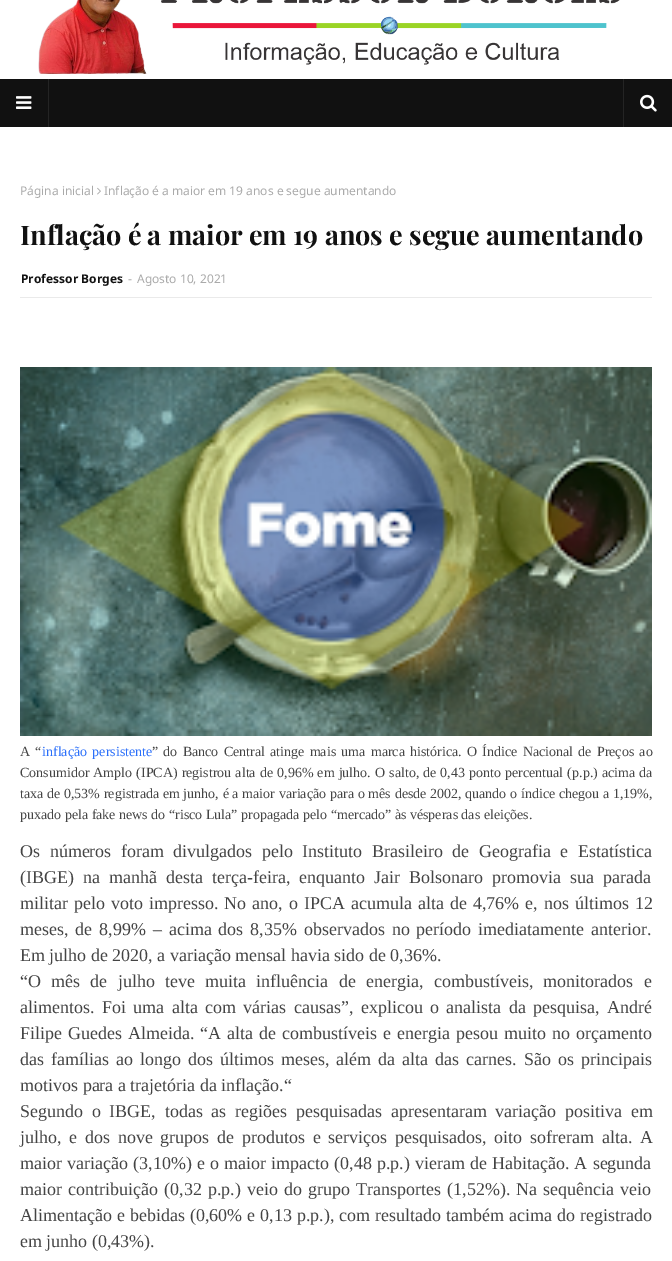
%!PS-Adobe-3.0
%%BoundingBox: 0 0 672 1261
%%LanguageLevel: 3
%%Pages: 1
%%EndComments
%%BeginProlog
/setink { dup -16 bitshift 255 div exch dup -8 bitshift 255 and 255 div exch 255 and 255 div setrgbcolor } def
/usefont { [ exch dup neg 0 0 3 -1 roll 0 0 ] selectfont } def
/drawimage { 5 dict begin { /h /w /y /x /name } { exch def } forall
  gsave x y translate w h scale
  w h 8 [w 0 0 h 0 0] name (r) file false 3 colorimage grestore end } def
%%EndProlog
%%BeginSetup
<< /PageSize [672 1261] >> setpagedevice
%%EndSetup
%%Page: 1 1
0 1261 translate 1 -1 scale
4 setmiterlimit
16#FFFFFF setink
0 0 672 1261 rectfill
(img1.raw) 38 0 582 74 drawimage
16#111111 setink
0 79 672 48 rectfill
16#242424 setink
48 79 1 48 rectfill
(img2.raw) 16 96 16 13 drawimage
623 79 1 48 rectfill
(img3.raw) 640 94 17 18 drawimage
/NotoSans-Regular 12 usefont
16#AAAAAA setink
20 195 moveto (Página inicial) show
(img4.raw) 97 187 4 8 drawimage
104 195 moveto (Inflação é a maior em 19 anos e segue aumentando) show
/PlayfairDisplay-Bold 27 usefont
16#111111 setink
20 245 moveto (Inflação é a maior em 19 anos e segue aumentando) show
16#EAEAEA setink
20 297 632 1 rectfill
/NotoSans-Bold 12 usefont
16#111111 setink
21 283 moveto (Professor Borges) show
/NotoSans-Regular 12 usefont
16#AAAAAA setink
128 283 moveto (-) show
137 283 moveto (Agosto 10, 2021) show
(img5.raw) 20 367 632 369 drawimage
/LiberationSerif-Regular 14 usefont
16#444444 setink
20 756 moveto 1.75 0 32 (A “) widthshow
16#2A6FFA setink
42 756 moveto 1.75 0 32 (inflação persistente) widthshow
16#444444 setink
152 756 moveto 1.75 0 32 (” do Banco Central atinge mais uma marca histórica. O Índice Nacional de Preços ao) widthshow
20 777 moveto 0.6 0 32 (Consumidor Amplo \(IPCA\) registrou alta de 0,96% em julho. O salto, de 0,43 ponto percentual \(p.p.\) acima da) widthshow
20 798 moveto 0.2 0 32 (taxa de 0,53% registrada em junho, é a maior variação para o mês desde 2002, quando o índice chegou a 1,19%,) widthshow
20 819 moveto (puxado pela fake news do “risco Lula” propagada pelo “mercado” às vésperas das eleições.) show
/LiberationSerif-Regular 18 usefont
20 857 moveto 5 0 32 (Os números foram divulgados pelo Instituto Brasileiro de Geografia e Estatística) widthshow
20 883 moveto 4.5 0 32 (\(IBGE\) na manhã desta terça-feira, enquanto Jair Bolsonaro promovia sua parada) widthshow
20 909 moveto 1.5 0 32 (militar pelo voto impresso. No ano, o IPCA acumula alta de 4,76% e, nos últimos 12) widthshow
20 935 moveto 2.4 0 32 (meses, de 8,99% – acima dos 8,35% observados no período imediatamente anterior.) widthshow
20 961 moveto (Em julho de 2020, a variação mensal havia sido de 0,36%.) show
20 987 moveto 5.75 0 32 (“O mês de julho teve muita influência de energia, combustíveis, monitorados e) widthshow
20 1013 moveto 2.9 0 32 (alimentos. Foi uma alta com várias causas”, explicou o analista da pesquisa, André) widthshow
20 1039 moveto 1.5 0 32 (Filipe Guedes Almeida. “A alta de combustíveis e energia pesou muito no orçamento) widthshow
20 1065 moveto 2.5 0 32 (das famílias ao longo dos últimos meses, além da alta das carnes. São os principais) widthshow
20 1091 moveto (motivos para a trajetória da inflação.“) show
20 1117 moveto 4.25 0 32 (Segundo o IBGE, todas as regiões pesquisadas apresentaram variação positiva em) widthshow
20 1143 moveto 3.25 0 32 (julho, e dos nove grupos de produtos e serviços pesquisados, oito sofreram alta. A) widthshow
20 1169 moveto 0.6 0 32 (maior variação \(3,10%\) e o maior impacto \(0,48 p.p.\) vieram de Habitação. A segunda) widthshow
20 1195 moveto 1.6 0 32 (maior contribuição \(0,32 p.p.\) veio do grupo Transportes \(1,52%\). Na sequência veio) widthshow
20 1221 moveto 0.5 0 32 (Alimentação e bebidas \(0,60% e 0,13 p.p.\), com resultado também acima do registrado) widthshow
20 1247 moveto (em junho \(0,43%\).) show
showpage
%%EOF
